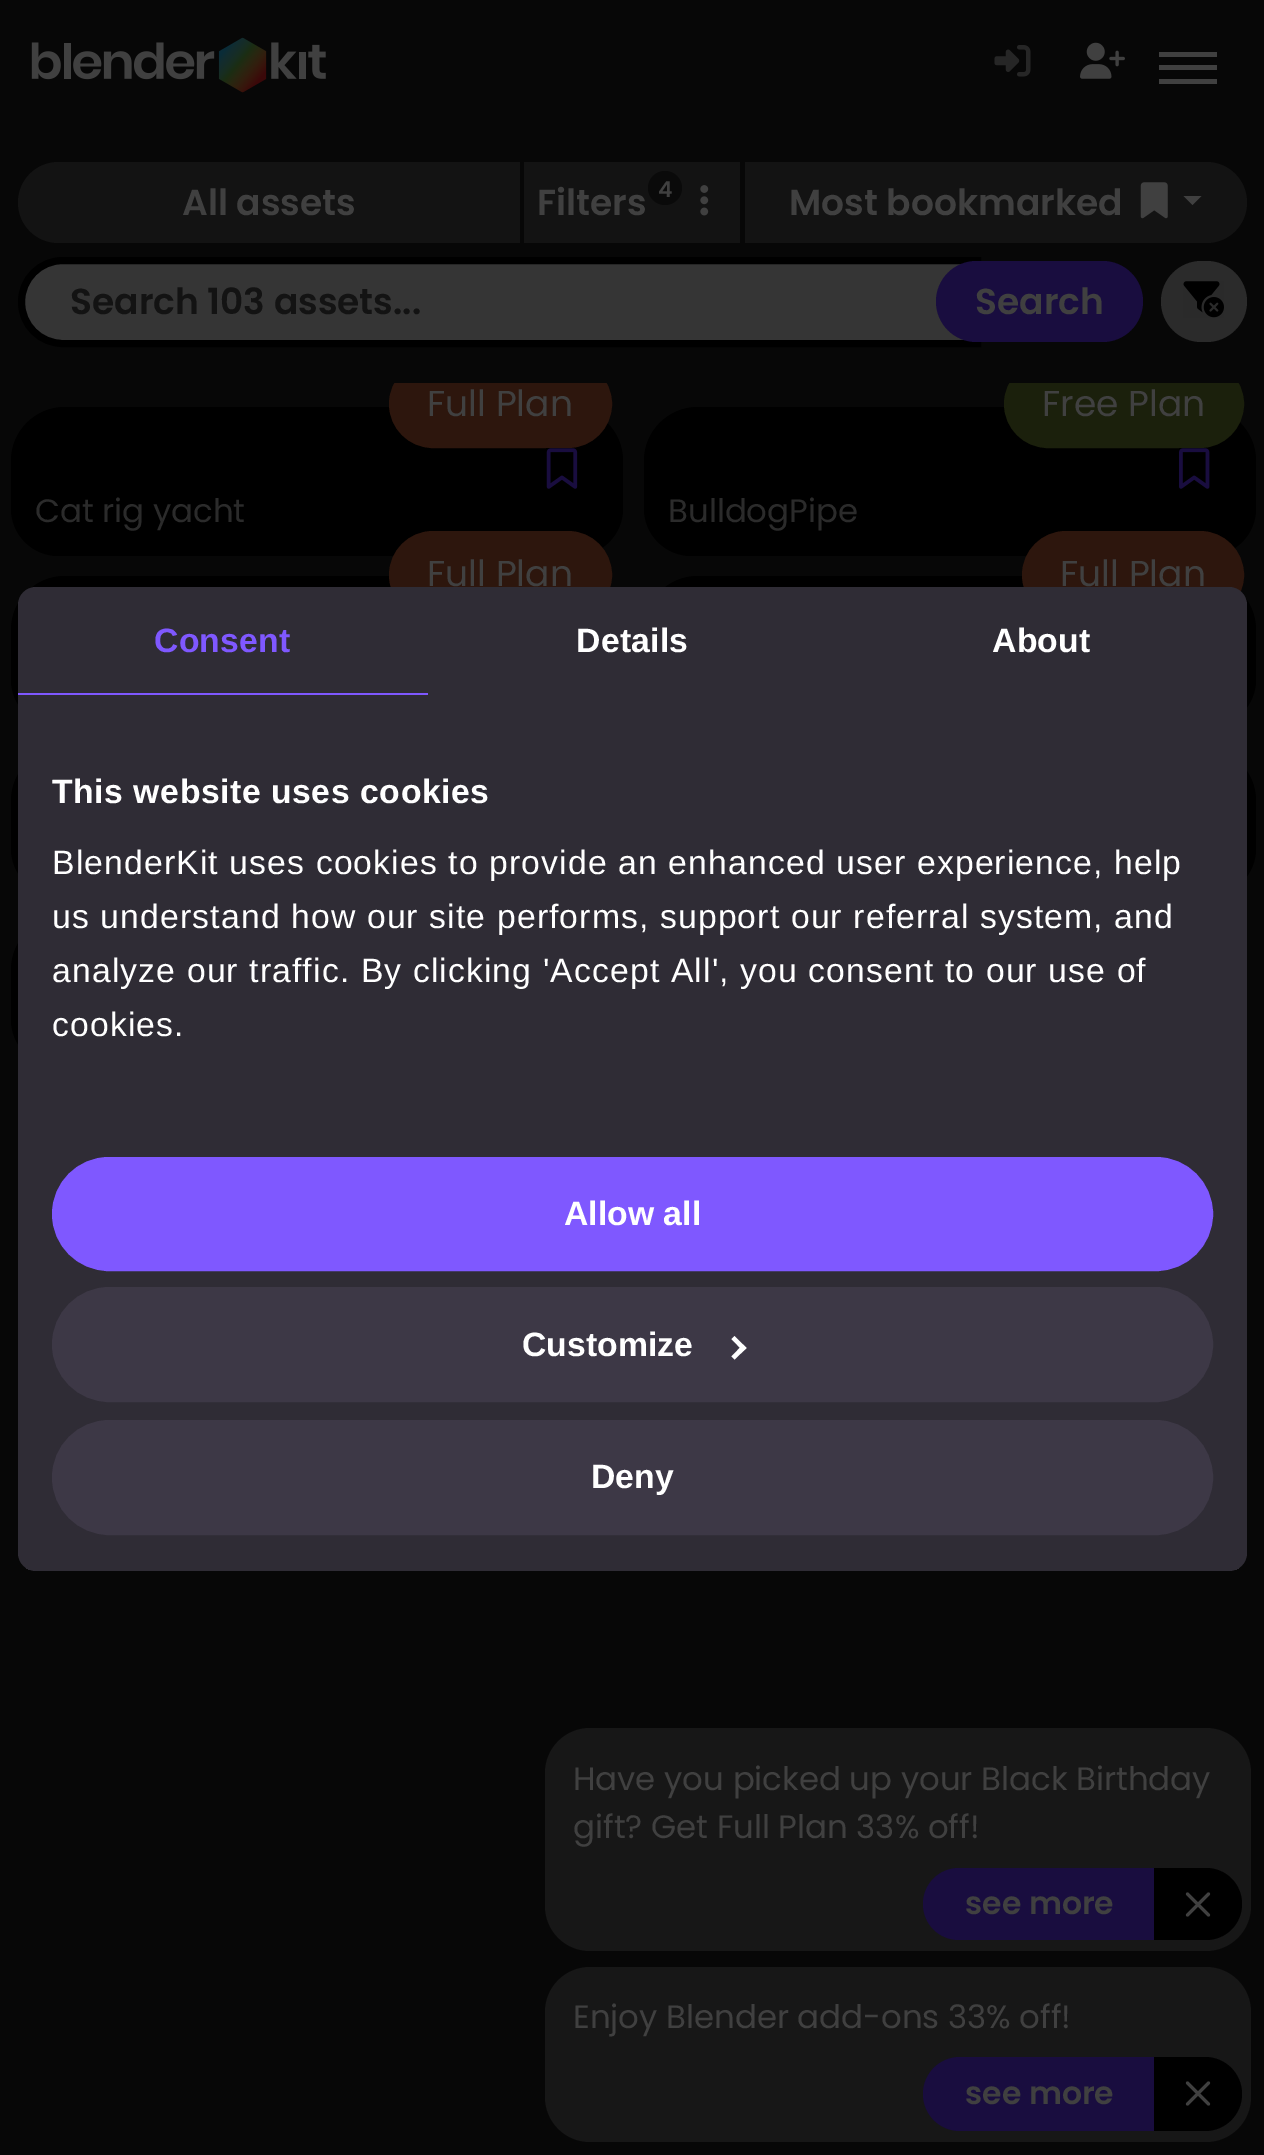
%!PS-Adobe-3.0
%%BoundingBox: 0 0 1264 2155
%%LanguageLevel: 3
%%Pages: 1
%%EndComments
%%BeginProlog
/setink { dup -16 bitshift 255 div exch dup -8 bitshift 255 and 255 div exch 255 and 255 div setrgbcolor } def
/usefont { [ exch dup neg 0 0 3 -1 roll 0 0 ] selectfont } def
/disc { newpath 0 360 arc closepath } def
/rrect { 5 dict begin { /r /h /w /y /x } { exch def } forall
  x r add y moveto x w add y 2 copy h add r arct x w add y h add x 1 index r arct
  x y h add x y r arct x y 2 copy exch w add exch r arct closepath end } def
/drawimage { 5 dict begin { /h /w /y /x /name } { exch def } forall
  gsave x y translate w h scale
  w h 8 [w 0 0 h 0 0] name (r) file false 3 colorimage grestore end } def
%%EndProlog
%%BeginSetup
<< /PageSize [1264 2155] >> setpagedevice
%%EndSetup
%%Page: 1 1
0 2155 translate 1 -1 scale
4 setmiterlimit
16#070707 setink
0 0 1264 2155 rectfill
(img1.raw) 31 37 295 56 drawimage
(img2.raw) 994 45 37 32 drawimage
(img3.raw) 1080 42 45 37 drawimage
[
    [1159 52 58 5 16#404040]
    [1159 65 58 5 16#404040]
    [1159 79 58 5 16#404040]
] { aload pop setink rectfill } forall
16#000000 setink
11 407 612 149 54 rrect fill
16#2D160D setink
390 361 221 86 43 rrect gsave fill grestore
2 setlinewidth
stroke
16#000000 setink
644 407 612 149 54 rrect fill
16#1B200C setink
1005 361 238 86 43 rrect gsave fill grestore
stroke
16#070707 setink
394 360 845 23 rectfill
16#131313 setink
58.5 162 moveto 520 162 lineto 520 243 lineto 58.5 243 lineto 36 243 18 225 18 202.5 curveto 18 180 36 162 58.5 162 curveto closepath fill
/Poppins-SemiBold 36 usefont
16#404040 setink
182 215 moveto (All assets) show
16#131313 setink
524 162 216 81 rectfill
16#404040 setink
537 215 moveto (Filters) show
16#0A0A0A setink
665 188 17 disc fill
/Poppins-SemiBold 22 usefont
16#404040 setink
658 197 moveto (4) show
(img4.raw) 700 185 9 31 drawimage
16#131313 setink
745 162 moveto 1206.5 162 lineto 1229 162 1247 180 1247 202.5 curveto 1247 225 1229 243 1206.5 243 curveto 745 243 lineto closepath fill
/Poppins-SemiBold 36 usefont
16#404040 setink
789 215 moveto (Most bookmarked) show
(img5.raw) 1140 182 28 37 drawimage
1183.5 196 moveto 1201.5 196 lineto 1192.5 205 lineto closepath fill
16#353535 setink
63 260.5 moveto 977.5 260.5 lineto 977.5 343.5 lineto 63 343.5 lineto 40 343.5 21.5 325 21.5 302 curveto 21.5 279 40 260.5 63 260.5 curveto closepath gsave fill grestore
16#000000 setink
7 setlinewidth
stroke
16#131313 setink
70 314 moveto (Search 103 assets...) show
16#190D3F setink
936 261 207 81 40.5 rrect fill
16#404040 setink
975 314 moveto (Search) show
16#2B2B2B setink
1161 261 86 81 40.5 rrect fill
(img6.raw) 1183 281 41 37 drawimage
16#000000 setink
11 461 612 95 47.5 rrect fill
/Poppins-Regular 36 usefont
16#404040 setink
427 416 moveto (Full Plan) show
/Poppins-Regular 32.4 usefont
16#2B2B2B setink
35 522 moveto (Cat rig yacht) show
(img7.raw) 546 448 32 41 drawimage
16#000000 setink
644 461 612 95 47.5 rrect fill
/Poppins-Regular 36 usefont
16#404040 setink
1042 416 moveto (Free Plan) show
/Poppins-Regular 32.4 usefont
16#2B2B2B setink
668 522 moveto (BulldogPipe) show
(img8.raw) 1179 448 31 41 drawimage
16#000000 setink
11 576 612 151 54 rrect fill
11 632 612 95 47.5 rrect fill
16#2D160D setink
390 532 221 86 43 rrect gsave fill grestore
2 setlinewidth
stroke
/Poppins-Regular 36 usefont
16#404040 setink
427 586 moveto (Full Plan) show
16#000000 setink
644 576 612 151 54 rrect fill
644 632 612 95 47.5 rrect fill
16#2D160D setink
1023 532 220 86 43 rrect gsave fill grestore
stroke
16#404040 setink
1060 586 moveto (Full Plan) show
16#000000 setink
11 747 612 149 54 rrect fill
11 801 612 95 47.5 rrect fill
644 747 612 149 54 rrect fill
644 801 612 95 47.5 rrect fill
11 916 612 151 54 rrect fill
11 972 612 95 47.5 rrect fill
16#2F2C35 setink
18 587 1229 984 18 rrect fill
16#7F58FF setink
18 693 410 2 rectfill
/LiberationSans-Bold 33.75 usefont
154 652 moveto 0.25 0 (Consent) ashow
16#FFFFFF setink
576 652 moveto 0.25 0 (Details) ashow
992 652 moveto 0.25 0 (About) ashow
52 803 moveto 0.55 0 (This website uses cookies) ashow
/LiberationSans-Regular 33.75 usefont
52 874 moveto 1.12 0 (BlenderKit uses cookies to provide an enhanced user experience, help) ashow
52 928 moveto 1.12 0 (us understand how our site performs, support our referral system, and) ashow
52 982 moveto 1.12 0 (analyze our traffic. By clicking 'Accept All', you consent to our use of) ashow
52 1036 moveto 1.12 0 (cookies.) ashow
gsave
18 587 1229 984 18 rrect clip newpath
16#2F2C35 setink
18 1568 1229 2 rectfill
grestore
16#7F58FF setink
54.5 1159.5 1156 109 54.5 rrect gsave fill grestore
5 setlinewidth
stroke
/LiberationSans-Bold 33.75 usefont
16#FFFFFF setink
564 1225 moveto (Allow all) show
16#3D3846 setink
54.5 1289.5 1156 110 55 rrect gsave fill grestore
stroke
16#FFFFFF setink
522 1356 moveto (Customize) show
734.5 1336 moveto 746.5 1348 lineto 743 1351 lineto 731.5 1339 lineto closepath fill
743 1344.5 moveto 746.5 1348 lineto 734.5 1359.5 lineto 731.5 1356.5 lineto closepath fill
16#3D3846 setink
54.5 1422.5 1156 110 55 rrect gsave fill grestore
stroke
16#FFFFFF setink
591 1488 moveto (Deny) show
16#171717 setink
545 1728 706 223 45 rrect fill
/Poppins-Regular 32.4 usefont
16#404040 setink
573 1790 moveto (Have you picked up your Black Birthday) show
573 1838 moveto (gift? Get Full Plan 33% off!) show
16#190D3F setink
959 1868 moveto 1157 1868 lineto 1157 1940 lineto 959 1940 lineto 939 1940 923 1924 923 1904 curveto 923 1884 939 1868 959 1868 curveto closepath fill
/Poppins-SemiBold 31.5 usefont
16#404040 setink
965 1914 moveto (see more) show
16#000000 setink
1154 1868 moveto 1206 1868 lineto 1226 1868 1242 1884 1242 1904 curveto 1242 1924 1226 1940 1206 1940 curveto 1154 1940 lineto closepath fill
16#404040 setink
3.1 setlinewidth
1 setlinecap
1187.5 1894 moveto 1208.5 1915 lineto 1208.5 1894 moveto 1187.5 1915 lineto stroke
16#171717 setink
545 1967 706 175 45 rrect fill
/Poppins-Regular 32.4 usefont
16#404040 setink
573 2028 moveto (Enjoy Blender add-ons 33% off!) show
16#190D3F setink
960 2057 moveto 1157 2057 lineto 1157 2131 lineto 960 2131 lineto 939.5 2131 923 2114.5 923 2094 curveto 923 2073.5 939.5 2057 960 2057 curveto closepath fill
/Poppins-SemiBold 31.5 usefont
16#404040 setink
965 2104 moveto (see more) show
16#000000 setink
1154 2057 moveto 1205 2057 lineto 1225.5 2057 1242 2073.5 1242 2094 curveto 1242 2114.5 1225.5 2131 1205 2131 curveto 1154 2131 lineto closepath fill
16#404040 setink
1187.5 2083 moveto 1208.5 2104 lineto 1208.5 2083 moveto 1187.5 2104 lineto stroke
showpage
%%EOF
